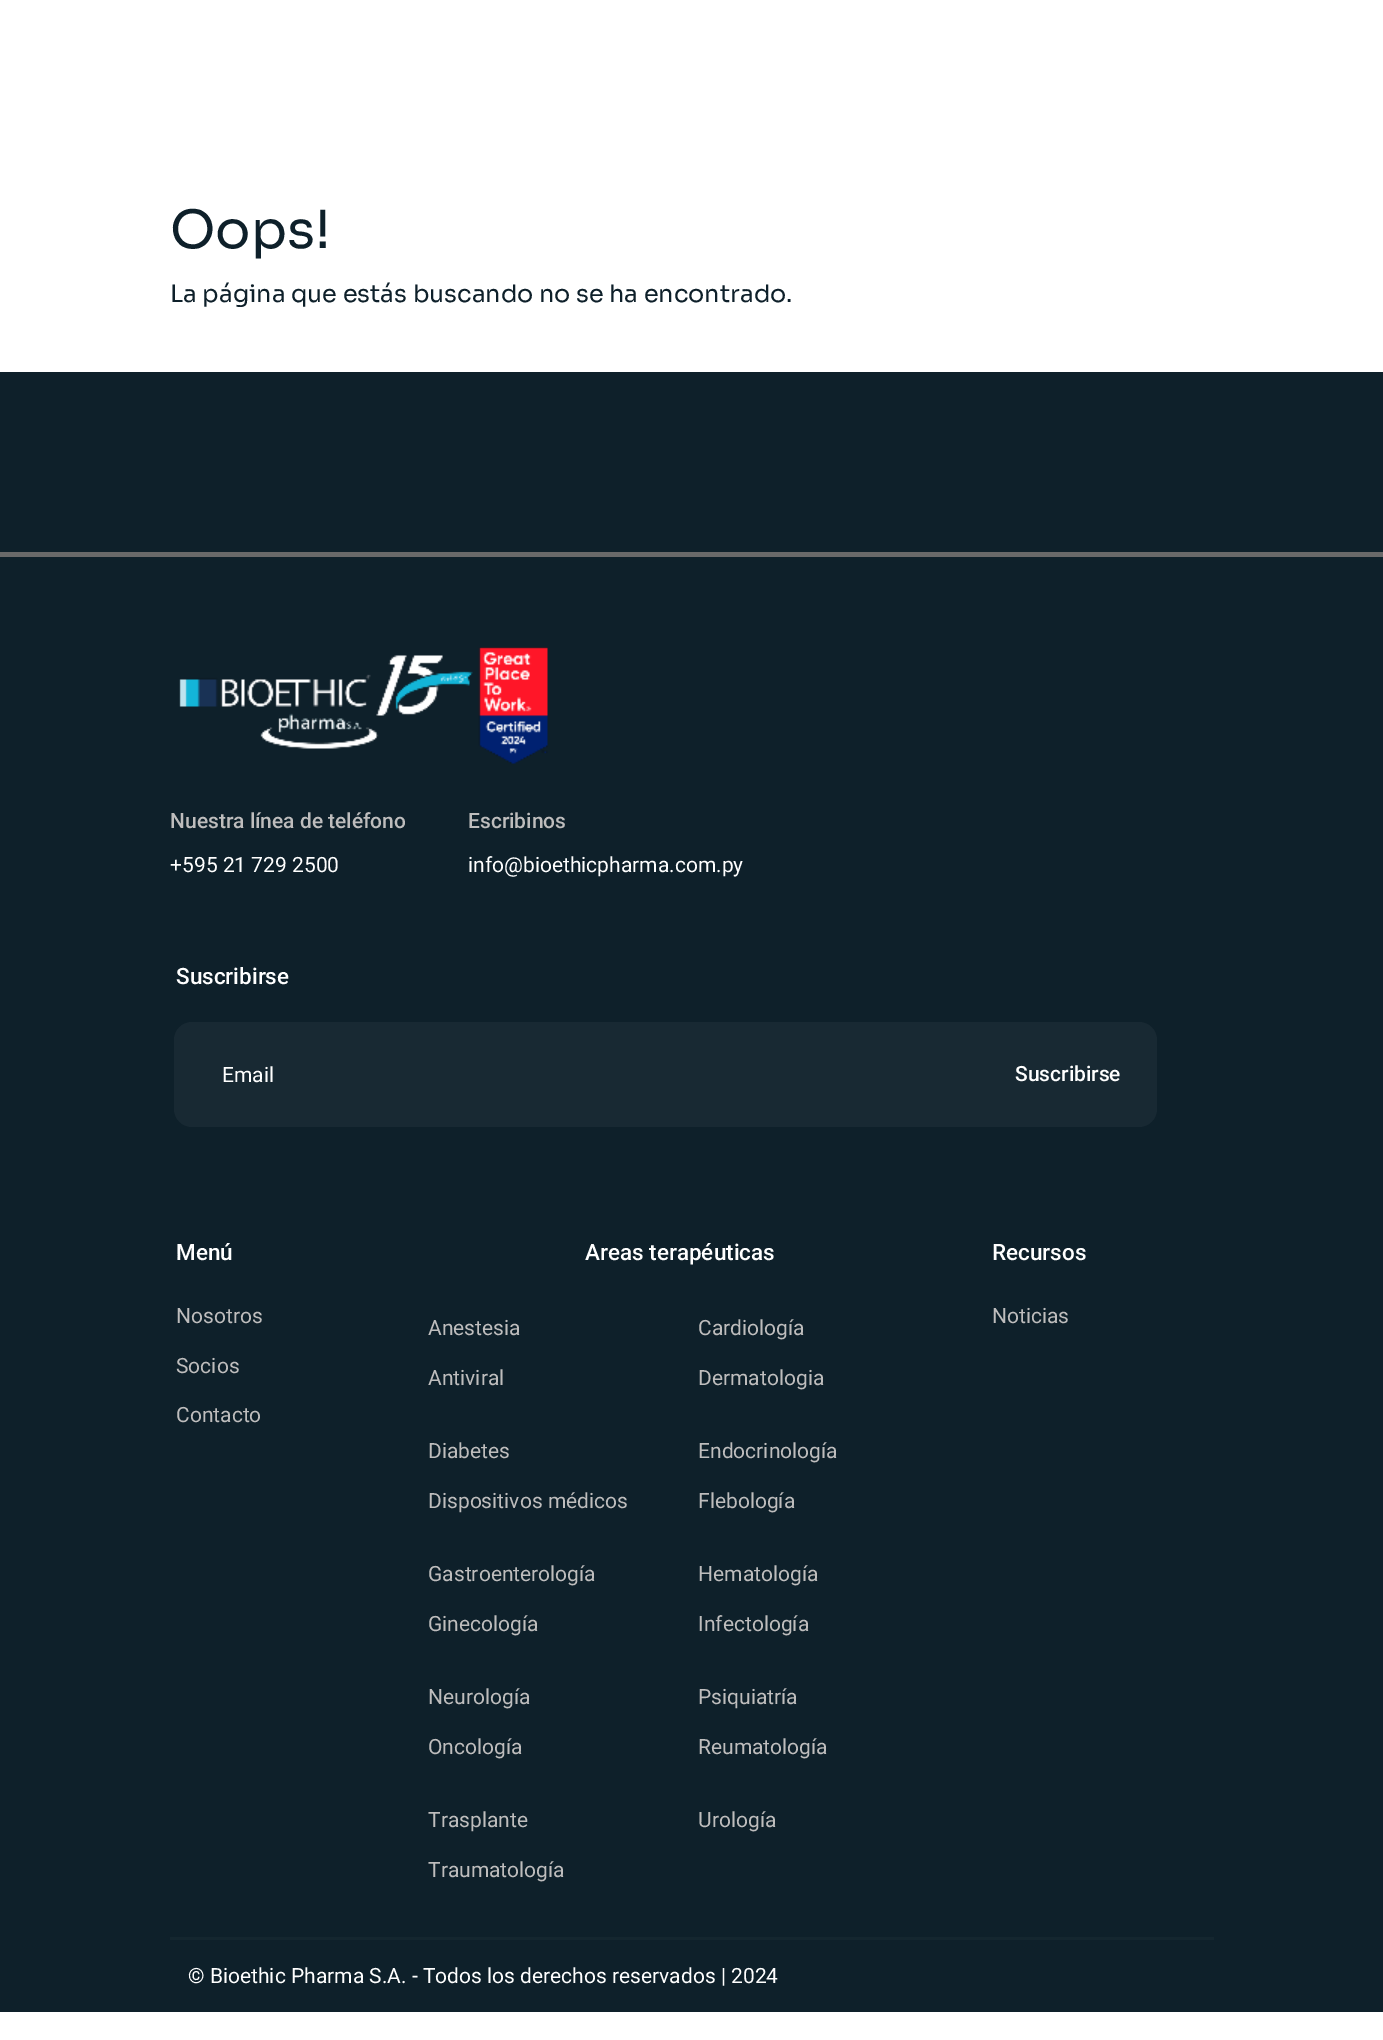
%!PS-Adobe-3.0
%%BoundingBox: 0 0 1383 2040
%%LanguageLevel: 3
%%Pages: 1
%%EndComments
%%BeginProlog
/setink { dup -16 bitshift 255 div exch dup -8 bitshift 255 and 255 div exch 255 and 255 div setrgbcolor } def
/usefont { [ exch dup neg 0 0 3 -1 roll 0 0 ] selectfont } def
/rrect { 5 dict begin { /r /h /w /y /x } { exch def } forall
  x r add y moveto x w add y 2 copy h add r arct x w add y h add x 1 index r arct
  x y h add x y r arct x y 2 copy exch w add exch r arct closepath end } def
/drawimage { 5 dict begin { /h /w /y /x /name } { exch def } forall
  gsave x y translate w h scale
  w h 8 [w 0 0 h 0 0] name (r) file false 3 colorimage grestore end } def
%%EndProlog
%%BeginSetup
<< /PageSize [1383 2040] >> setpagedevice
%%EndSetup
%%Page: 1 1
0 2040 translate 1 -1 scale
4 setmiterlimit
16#FFFFFF setink
0 0 1383 2040 rectfill
/Sora-Regular 52.5 usefont
16#0E202A setink
170 248 moveto (Oops!) show
/Sora-Regular 24 usefont
170 302 moveto (La página que estás buscando no se ha encontrado.) show
0 372 1383 1640 rectfill
16#696969 setink
0 552 1383 5 rectfill
(img1.raw) 179 647 369 117 drawimage
/Roboto-Medium 21 usefont
16#BEBDBD setink
170 828 moveto (Nuestra línea de teléfono) show
/Roboto-Regular 21 usefont
16#FFFFFF setink
170 872 moveto (+595 21 729 2500) show
/Roboto-Medium 21 usefont
16#BEBDBD setink
468 828 moveto (Escribinos) show
/Roboto-Regular 21 usefont
16#FFFFFF setink
468 872 moveto (info@bioethicpharma.com.py) show
/Roboto-Medium 22.5 usefont
176 984 moveto (Suscribirse) show
16#182933 setink
174 1022 983 105 18 rrect fill
/Roboto-Regular 21 usefont
16#FFFFFF setink
222 1082 moveto (Email) show
/Roboto-Medium 21 usefont
1015 1081 moveto (Suscribirse) show
/Roboto-Medium 22.5 usefont
176 1260 moveto (Menú) show
/Roboto-Regular 21 usefont
16#BEBDBD setink
[
    [(Nosotros) 176 1323]
    [(Socios) 176 1373]
    [(Contacto) 176 1422]
] { aload pop moveto show } forall
/Roboto-Medium 22.5 usefont
16#FFFFFF setink
585 1260 moveto (Areas terapéuticas) show
/Roboto-Regular 21 usefont
16#BEBDBD setink
[
    [(Anestesia) 428 1335]
    [(Antiviral) 428 1385]
    [(Cardiología) 698 1335]
    [(Dermatologia) 698 1385]
    [(Diabetes) 428 1458]
    [(Dispositivos médicos) 428 1508]
    [(Endocrinología) 698 1458]
    [(Flebología) 698 1508]
    [(Gastroenterología) 428 1581]
    [(Ginecología) 428 1631]
    [(Hematología) 698 1581]
    [(Infectología) 698 1631]
    [(Neurología) 428 1704]
    [(Oncología) 428 1754]
    [(Psiquiatría) 698 1704]
    [(Reumatología) 698 1754]
    [(Trasplante) 428 1827]
    [(Traumatología) 428 1877]
    [(Urología) 698 1827]
] { aload pop moveto show } forall
/Roboto-Medium 22.5 usefont
16#FFFFFF setink
992 1260 moveto (Recursos) show
/Roboto-Regular 21 usefont
16#BEBDBD setink
992 1323 moveto (Noticias) show
16#14262F setink
170 1937 1044 3 rectfill
16#FFFFFF setink
188 1983 moveto (© Bioethic Pharma S.A. - Todos los derechos reservados | 2024) show
showpage
%%EOF
